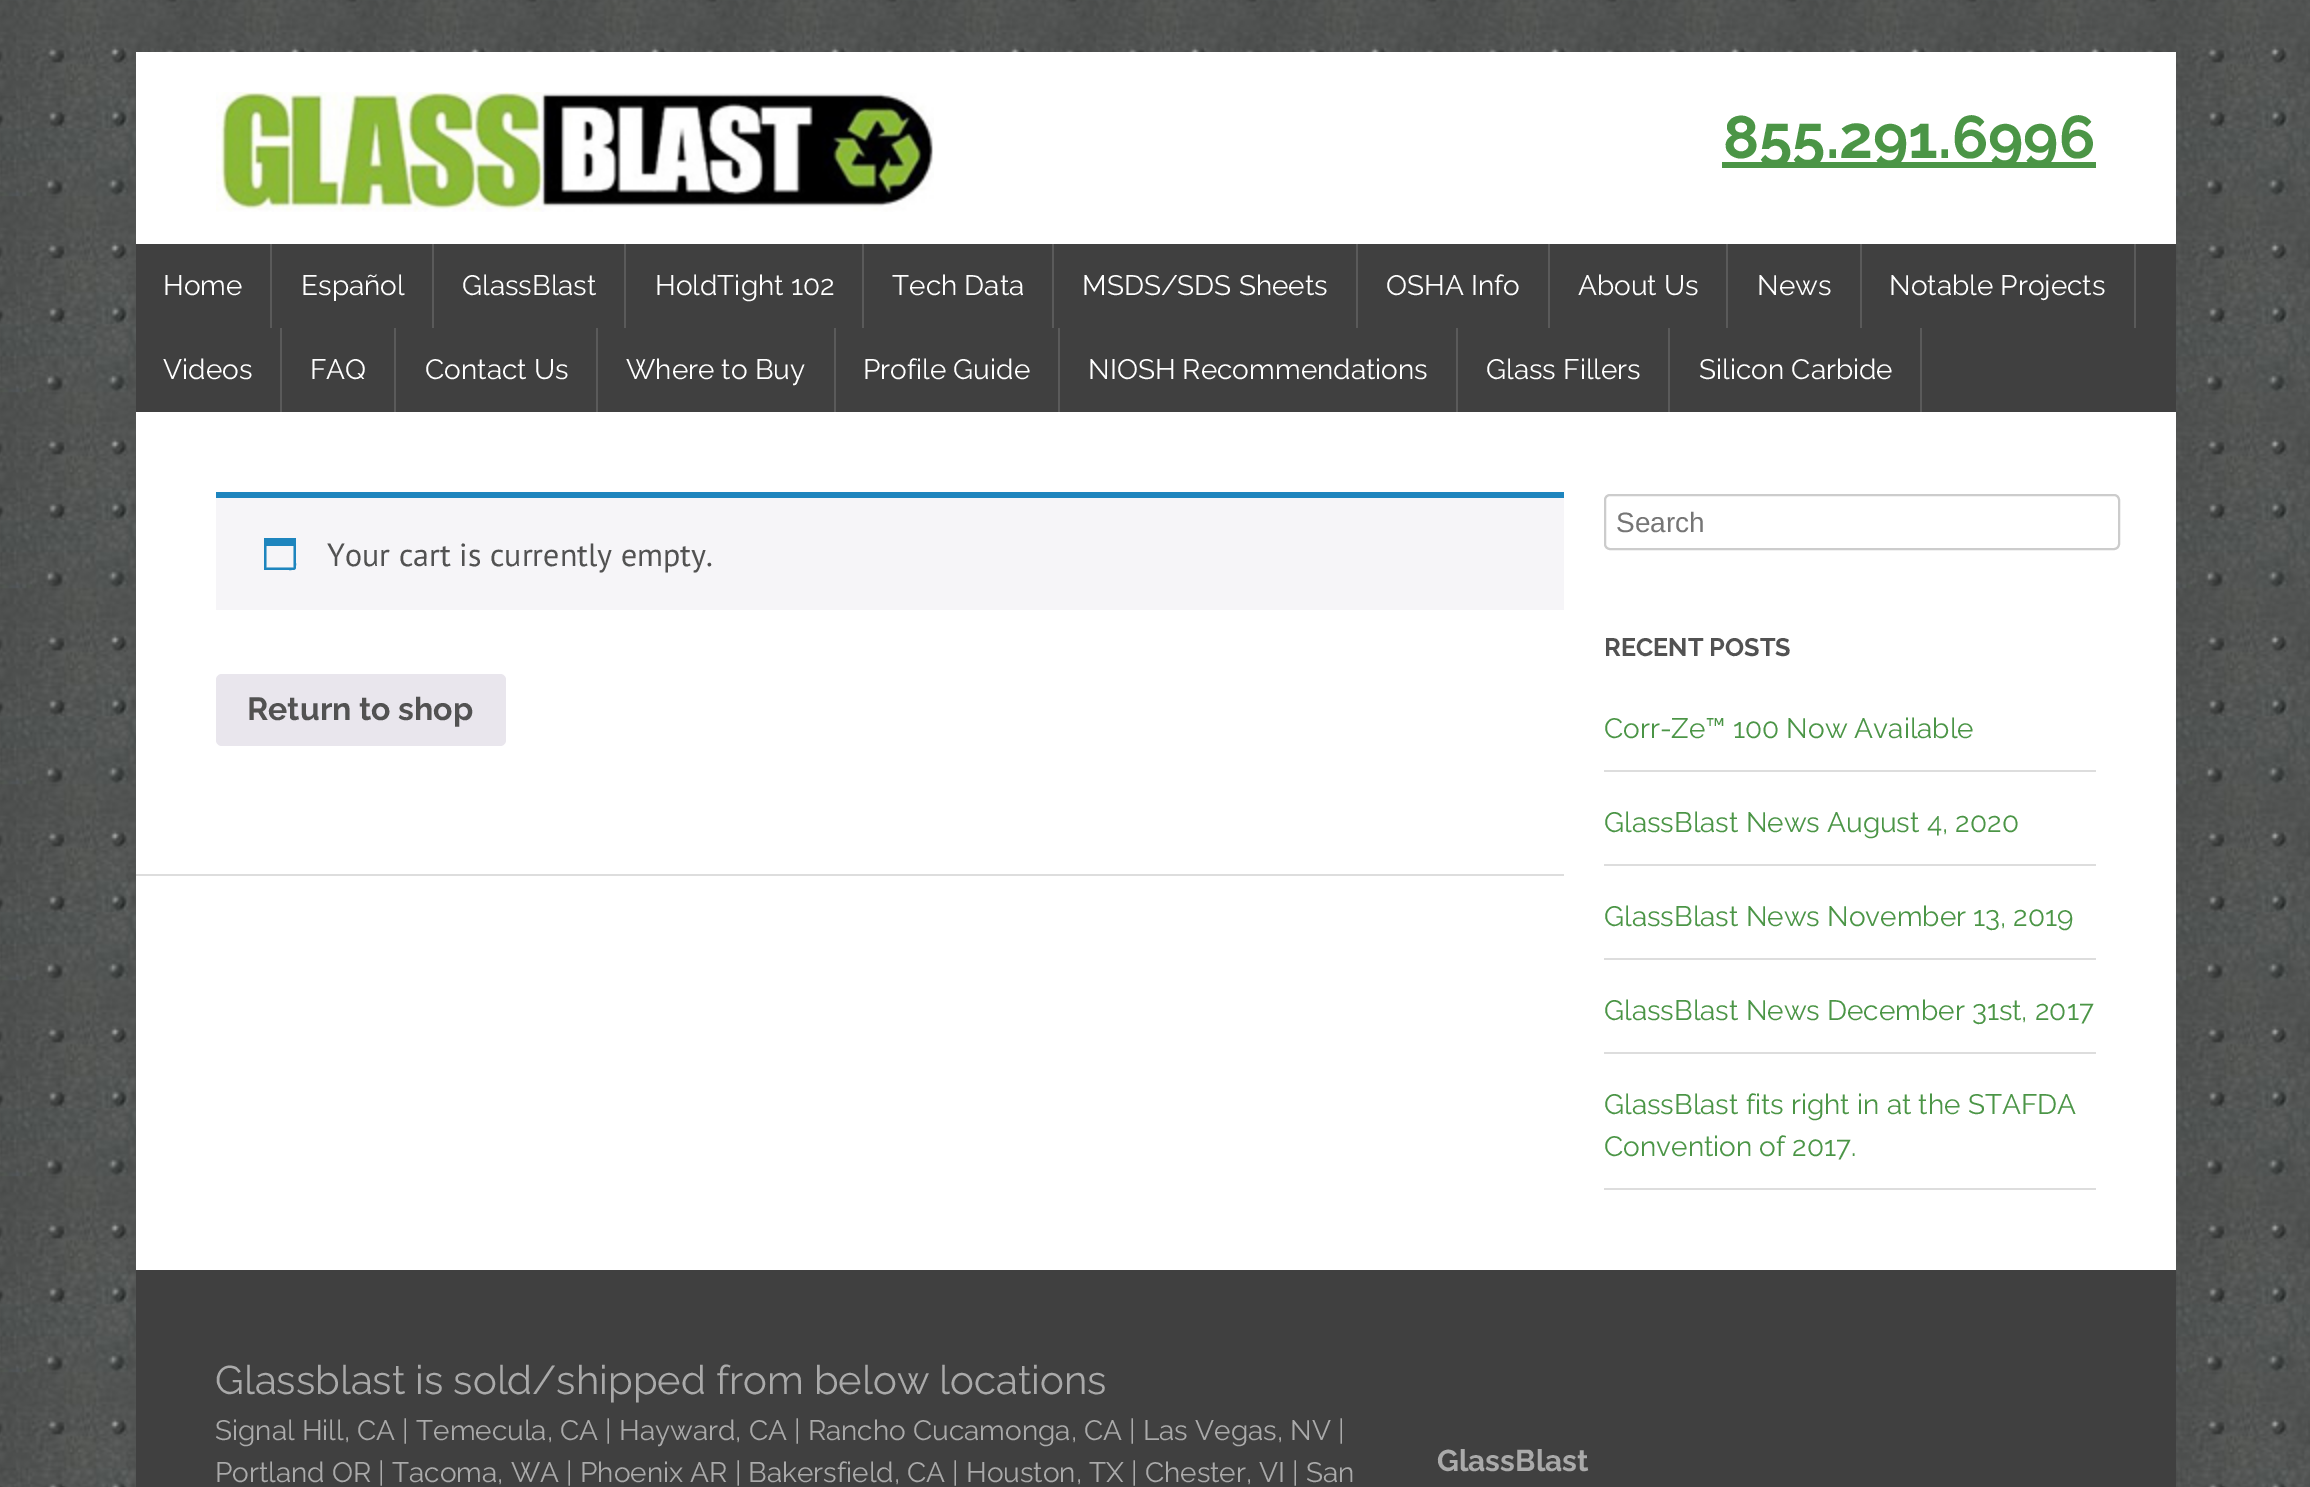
%!PS-Adobe-3.0
%%BoundingBox: 0 0 2310 1487
%%LanguageLevel: 3
%%Pages: 1
%%EndComments
%%BeginProlog
/setink { dup -16 bitshift 255 div exch dup -8 bitshift 255 and 255 div exch 255 and 255 div setrgbcolor } def
/usefont { [ exch dup neg 0 0 3 -1 roll 0 0 ] selectfont } def
/rrect { 5 dict begin { /r /h /w /y /x } { exch def } forall
  x r add y moveto x w add y 2 copy h add r arct x w add y h add x 1 index r arct
  x y h add x y r arct x y 2 copy exch w add exch r arct closepath end } def
/drawimage { 5 dict begin { /h /w /y /x /name } { exch def } forall
  gsave x y translate w h scale
  w h 8 [w 0 0 h 0 0] name (r) file false 3 colorimage grestore end } def
%%EndProlog
%%BeginSetup
<< /PageSize [2310 1487] >> setpagedevice
%%EndSetup
%%Page: 1 1
0 1487 translate 1 -1 scale
4 setmiterlimit
16#FFFFFF setink
0 0 2310 1487 rectfill
(img1.raw) 0 0 2310 1487 drawimage
136 52 2040 1218 rectfill
(img2.raw) 216 92 718 120 drawimage
16#4B9546 setink
1722 162 374 6 rectfill
/Raleway-Bold 60 usefont
1723 158 moveto (855.291.6996) show
16#404040 setink
136 244 2040 168 rectfill
16#5A5A5A setink
270 244 2 84 rectfill
/Raleway-Regular 28 usefont
16#FFFFFF setink
163 295 moveto (Home) show
16#5A5A5A setink
432 244 2 84 rectfill
16#FFFFFF setink
301 295 moveto (Español) show
16#5A5A5A setink
624 244 2 84 rectfill
16#FFFFFF setink
462 295 moveto (GlassBlast) show
16#5A5A5A setink
862 244 2 84 rectfill
16#FFFFFF setink
655 295 moveto (HoldTight 102) show
16#5A5A5A setink
1052 244 2 84 rectfill
16#FFFFFF setink
892 295 moveto (Tech Data) show
16#5A5A5A setink
1356 244 2 84 rectfill
16#FFFFFF setink
1082 295 moveto (MSDS/SDS Sheets) show
16#5A5A5A setink
1548 244 2 84 rectfill
16#FFFFFF setink
1386 295 moveto (OSHA Info) show
16#5A5A5A setink
1726 244 2 84 rectfill
16#FFFFFF setink
1578 295 moveto (About Us) show
16#5A5A5A setink
1860 244 2 84 rectfill
16#FFFFFF setink
1757 295 moveto (News) show
16#5A5A5A setink
2134 244 2 84 rectfill
16#FFFFFF setink
1889 295 moveto (Notable Projects) show
16#5A5A5A setink
280 328 2 84 rectfill
16#FFFFFF setink
163 379 moveto (Videos) show
16#5A5A5A setink
394 328 2 84 rectfill
16#FFFFFF setink
310 379 moveto (FAQ) show
16#5A5A5A setink
596 328 2 84 rectfill
16#FFFFFF setink
425 379 moveto (Contact Us) show
16#5A5A5A setink
834 328 2 84 rectfill
16#FFFFFF setink
626 379 moveto (Where to Buy) show
16#5A5A5A setink
1058 328 2 84 rectfill
16#FFFFFF setink
863 379 moveto (Profile Guide) show
16#5A5A5A setink
1456 328 2 84 rectfill
16#FFFFFF setink
1088 379 moveto (NIOSH Recommendations) show
16#5A5A5A setink
1668 328 2 84 rectfill
16#FFFFFF setink
1486 379 moveto (Glass Fillers) show
16#5A5A5A setink
1920 328 2 84 rectfill
16#FFFFFF setink
1699 379 moveto (Silicon Carbide) show
[
    [136 874 1428 2 16#DDDDDD]
    [216 498 1348 112 16#F6F5F8]
    [216 492 1348 6 16#1E85BE]
] { aload pop setink rectfill } forall
293.5 546 moveto 266.5 546 lineto 266.5 567.5 lineto 293.5 567.5 lineto closepath 296 538 moveto 296 562.5 lineto 296 570.5 296.5 570 288.5 570 curveto 264 570 lineto 264 538 lineto closepath fill
/PTSans-Regular 32 usefont
16#525252 setink
327 566 moveto (Your cart is currently empty.) show
16#E9E6ED setink
216 674 290 72 6 rrect fill
/Raleway-Bold 32 usefont
16#525252 setink
247 720 moveto (Return to shop) show
16#CCCCCC setink
2 setlinewidth
1605 495 514 54 5 rrect stroke
/LiberationSans-Regular 28 usefont
16#757575 setink
1616 532 moveto (Search) show
/Raleway-Bold 25.25 usefont
16#525252 setink
1604 656 moveto (RECENT POSTS) show
16#DDDDDD setink
1604 770 492 2 rectfill
/Raleway-Regular 28 usefont
16#4B9546 setink
1604 738 moveto (Corr-Ze™ 100 Now Available) show
16#DDDDDD setink
1604 864 492 2 rectfill
16#4B9546 setink
1604 832 moveto (GlassBlast News August 4, 2020) show
16#DDDDDD setink
1604 958 492 2 rectfill
16#4B9546 setink
1604 926 moveto (GlassBlast News November 13, 2019) show
16#DDDDDD setink
1604 1052 492 2 rectfill
16#4B9546 setink
1604 1020 moveto (GlassBlast News December 31st, 2017) show
16#DDDDDD setink
1604 1188 492 2 rectfill
16#4B9546 setink
1604 1114 moveto (GlassBlast fits right in at the STAFDA) show
1604 1156 moveto (Convention of 2017.) show
16#404040 setink
136 1270 2040 217 rectfill
/Raleway-Regular 40 usefont
16#AAAAAA setink
215 1394 moveto (Glassblast is sold/shipped from below locations) show
/Raleway-Regular 28 usefont
215 1440 moveto (Signal Hill, CA | Temecula, CA | Hayward, CA | Rancho Cucamonga, CA | Las Vegas, NV |) show
215 1482 moveto (Portland OR | Tacoma, WA | Phoenix AR | Bakersfield, CA | Houston, TX | Chester, VI | San) show
/Raleway-Bold 30 usefont
1437 1471 moveto (GlassBlast) show
showpage
%%EOF
